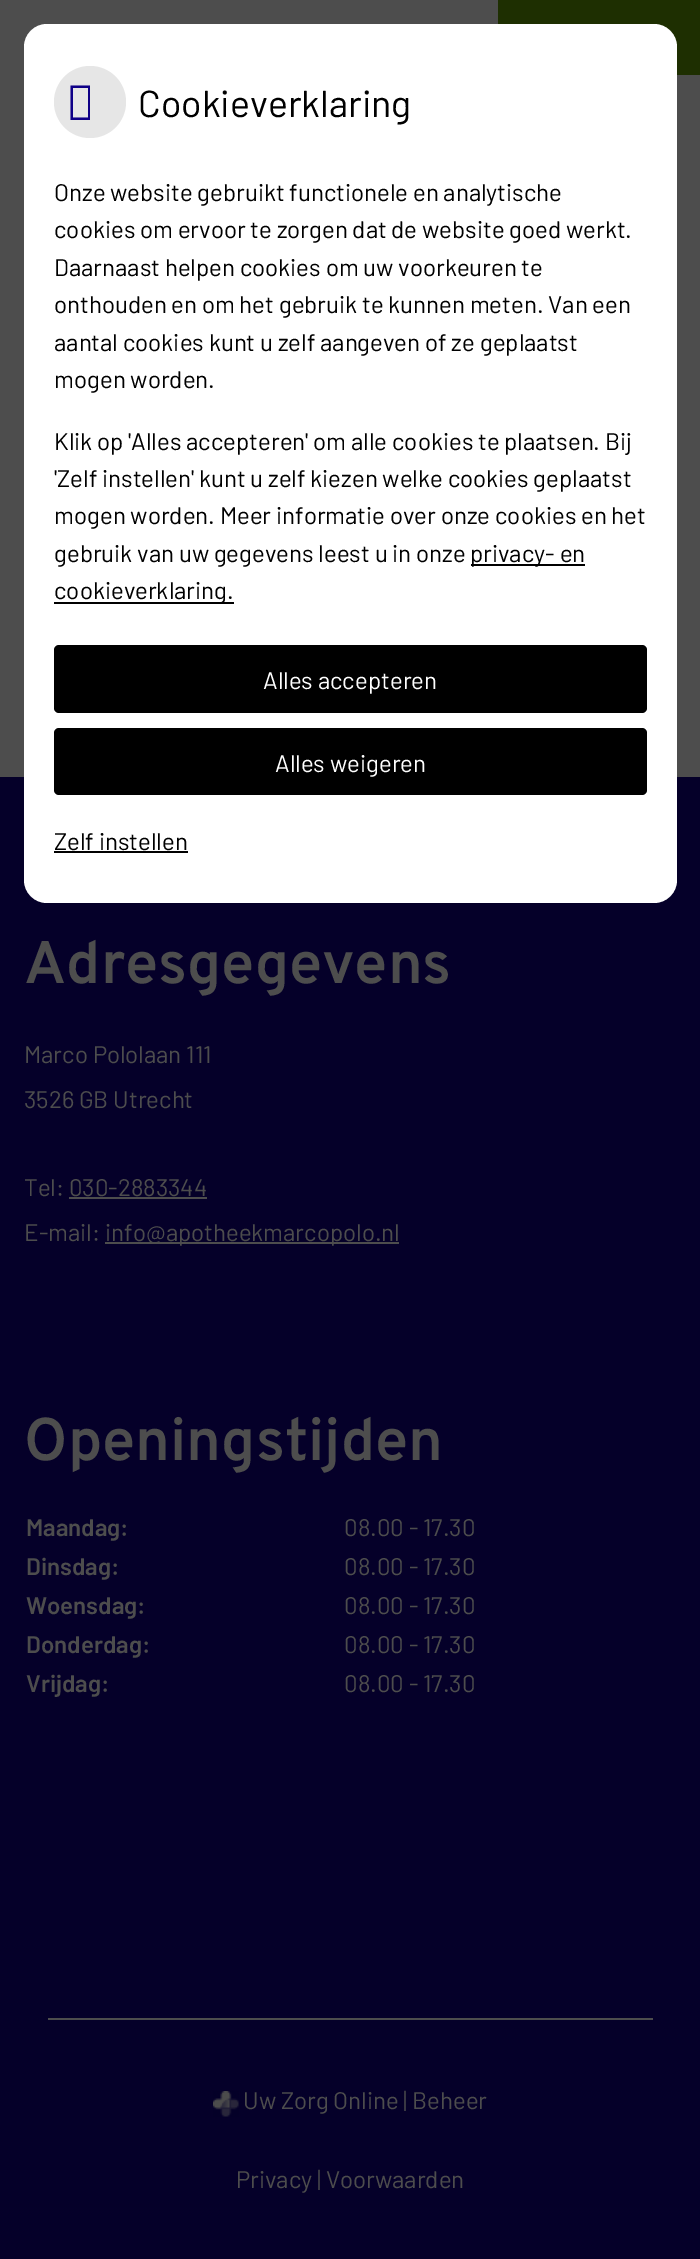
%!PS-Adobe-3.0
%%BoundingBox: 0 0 700 2259
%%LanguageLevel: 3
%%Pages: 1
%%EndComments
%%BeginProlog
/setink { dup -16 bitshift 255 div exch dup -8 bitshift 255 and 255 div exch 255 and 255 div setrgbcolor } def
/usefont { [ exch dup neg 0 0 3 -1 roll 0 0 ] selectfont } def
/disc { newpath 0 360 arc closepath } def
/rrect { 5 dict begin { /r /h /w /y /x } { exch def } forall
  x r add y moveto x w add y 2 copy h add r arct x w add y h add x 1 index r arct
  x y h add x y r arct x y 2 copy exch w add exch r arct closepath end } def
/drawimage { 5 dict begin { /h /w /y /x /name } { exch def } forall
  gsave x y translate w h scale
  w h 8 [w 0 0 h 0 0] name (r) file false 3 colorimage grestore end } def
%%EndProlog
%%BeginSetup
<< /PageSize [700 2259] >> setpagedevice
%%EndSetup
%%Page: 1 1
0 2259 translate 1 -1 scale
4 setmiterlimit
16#4D4D4D setink
0 0 700 2259 rectfill
16#1E2F01 setink
498 0 202 75 rectfill
16#050029 setink
0 777 700 1482 rectfill
16#FFFFFF setink
24 24 653 879 23 rrect fill
16#E6E6E6 setink
90 102 36 disc fill
16#0F0087 setink
70.5 120 moveto 70.5 85.5 lineto 90 85.5 lineto 90 120 lineto closepath 73 117.5 moveto 88 117.5 lineto 88 88 lineto 73 88 lineto closepath fill
/Barlow-Regular 37.5 usefont
16#000000 setink
138 117 moveto (Cookieverklaring) show
/Barlow-Regular 24 usefont
[
    [(Onze website gebruikt functionele en analytische) 54 201]
    [(cookies om ervoor te zorgen dat de website goed werkt.) 54 238]
    [(Daarnaast helpen cookies om uw voorkeuren te) 54 276]
    [(onthouden en om het gebruik te kunnen meten. Van een) 54 313]
    [(aantal cookies kunt u zelf aangeven of ze geplaatst) 54 351]
    [(mogen worden.) 54 388]
    [(Klik op 'Alles accepteren' om alle cookies te plaatsen. Bij) 54 450]
    [('Zelf instellen' kunt u zelf kiezen welke cookies geplaatst) 54 487]
    [(mogen worden. Meer informatie over onze cookies en het) 54 524]
    [(gebruik van uw gegevens leest u in onze) 54 562]
] { aload pop moveto show } forall
471 564 114 2 rectfill
470 562 moveto (privacy- en) show
54 602 180 2 rectfill
54 599 moveto (cookieverklaring.) show
54 645 593 68 5 rrect fill
16#FFFFFF setink
263 689 moveto (Alles accepteren) show
16#000000 setink
54 728 593 67 5 rrect fill
16#FFFFFF setink
275 772 moveto (Alles weigeren) show
16#000000 setink
54 850 moveto (Zelf instellen) show
54 851 134 2 rectfill
/Overpass-SemiBold 60 usefont
16#4D4D4D setink
24 983 moveto (Adresgegevens) show
/Barlow-Regular 24 usefont
[
    [(Marco Pololaan 111) 24 1063]
    [(3526 GB Utrecht) 24 1108]
    [(Tel: 030-2883344) 24 1196]
] { aload pop moveto show } forall
69 1197 138 2 rectfill
24 1241 moveto (E-mail:) show
105 1242 294 2 rectfill
105 1241 moveto (info@apotheekmarcopolo.nl) show
/Overpass-SemiBold 60 usefont
24 1460 moveto (Openingstijden) show
/Barlow-SemiBold 24 usefont
26 1536 moveto (Maandag:) show
/Barlow-Regular 24 usefont
344 1536 moveto (08.00 - 17.30) show
/Barlow-SemiBold 24 usefont
26 1575 moveto (Dinsdag:) show
/Barlow-Regular 24 usefont
344 1575 moveto (08.00 - 17.30) show
/Barlow-SemiBold 24 usefont
26 1614 moveto (Woensdag:) show
/Barlow-Regular 24 usefont
344 1614 moveto (08.00 - 17.30) show
/Barlow-SemiBold 24 usefont
26 1653 moveto (Donderdag:) show
/Barlow-Regular 24 usefont
344 1653 moveto (08.00 - 17.30) show
/Barlow-SemiBold 24 usefont
26 1692 moveto (Vrijdag:) show
/Barlow-Regular 24 usefont
344 1692 moveto (08.00 - 17.30) show
48 2018 605 2 rectfill
(img1.raw) 213 2091 26 26 drawimage
243 2109 moveto (Uw Zorg Online | Beheer) show
236 2188 moveto (Privacy | Voorwaarden) show
showpage
%%EOF
